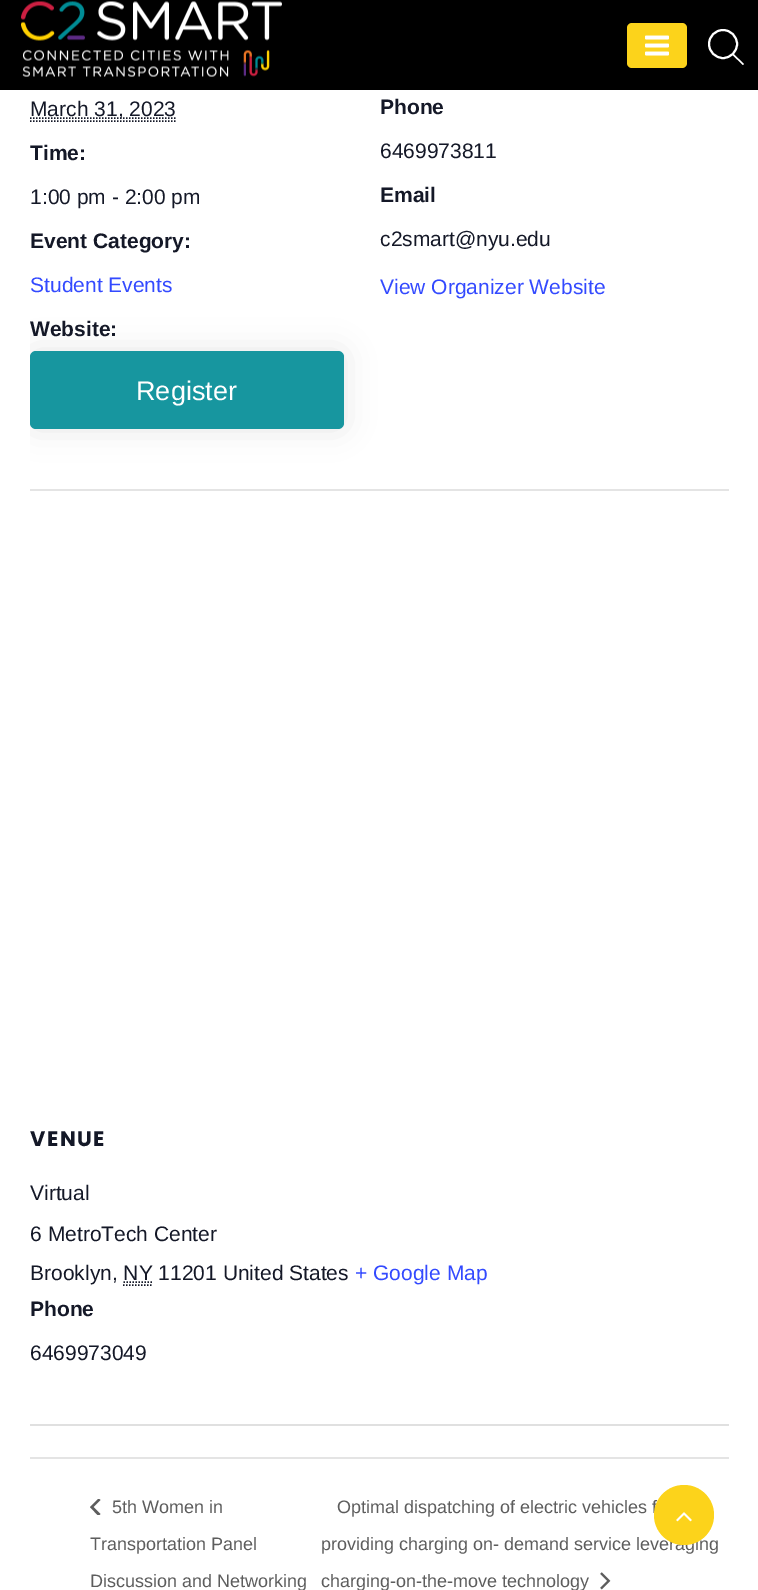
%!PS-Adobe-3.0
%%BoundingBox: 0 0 758 1590
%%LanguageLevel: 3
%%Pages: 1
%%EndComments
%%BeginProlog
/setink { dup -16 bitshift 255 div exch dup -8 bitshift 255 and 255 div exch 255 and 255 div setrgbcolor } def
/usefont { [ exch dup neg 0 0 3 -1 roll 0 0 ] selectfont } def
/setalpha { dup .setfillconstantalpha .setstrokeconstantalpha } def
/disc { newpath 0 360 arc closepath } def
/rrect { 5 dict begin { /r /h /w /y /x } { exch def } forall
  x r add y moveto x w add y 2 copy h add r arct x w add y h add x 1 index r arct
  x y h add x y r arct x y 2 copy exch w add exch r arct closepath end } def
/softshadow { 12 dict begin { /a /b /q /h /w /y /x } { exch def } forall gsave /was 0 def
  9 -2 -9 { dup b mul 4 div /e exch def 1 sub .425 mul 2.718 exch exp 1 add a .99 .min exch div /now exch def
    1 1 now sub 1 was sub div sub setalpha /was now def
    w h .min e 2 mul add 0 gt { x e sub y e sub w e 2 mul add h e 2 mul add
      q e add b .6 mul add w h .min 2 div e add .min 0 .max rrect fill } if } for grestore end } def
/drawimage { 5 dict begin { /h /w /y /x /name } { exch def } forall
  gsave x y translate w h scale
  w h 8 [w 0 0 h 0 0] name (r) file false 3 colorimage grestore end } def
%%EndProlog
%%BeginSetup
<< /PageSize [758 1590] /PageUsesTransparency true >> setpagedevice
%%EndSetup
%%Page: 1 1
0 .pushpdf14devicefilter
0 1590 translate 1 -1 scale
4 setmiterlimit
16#FFFFFF setink
0 0 758 1590 rectfill
16#000000 setink
0 0 758 90 rectfill
(img1.raw) 21 1 261 76 drawimage
16#FCD31B setink
627 23 60 45 5 rrect fill
(img2.raw) 645 35 24 21 drawimage
16#FFFFFF setink
2 setlinewidth
723 44 14 disc stroke
733 53.5 moveto 744 64 lineto 743 65 lineto 732 54.5 lineto closepath fill
16#E0E0E0 setink
30 1424 699 2 rectfill
16#141827 setink
1.5 setlinewidth
[1.5 1.5] 0 setdash
30 118 moveto 176 118 lineto stroke
/LiberationSans-Regular 21 usefont
30 116 moveto (March 31, 2023) show
30 121 moveto 175.5 121 lineto stroke
/LiberationSans-Bold 21 usefont
30 160 moveto (Time:) show
/LiberationSans-Regular 21 usefont
30 204 moveto (1:00 pm - 2:00 pm) show
/LiberationSans-Bold 21 usefont
30 248 moveto (Event Category:) show
/LiberationSans-Regular 21 usefont
16#334AFF setink
30 292 moveto (Student Events) show
gsave
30 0 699 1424 rectclip
16#000000 setink
30 351 314 78 6 15 0.1 softshadow
grestore
/LiberationSans-Bold 21 usefont
16#141827 setink
30 336 moveto (Website:) show
16#17969F setink
30 351 314 78 6 rrect fill
/LiberationSans-Regular 27 usefont
16#FFFFFF setink
136 400 moveto (Register) show
/LiberationSans-Bold 21 usefont
16#141827 setink
380 114 moveto (Phone) show
/LiberationSans-Regular 21 usefont
380 158 moveto (6469973811) show
/LiberationSans-Bold 21 usefont
380 202 moveto (Email) show
/LiberationSans-Regular 21 usefont
380 246 moveto (c2smart@nyu.edu) show
16#334AFF setink
380 294 moveto (View Organizer Website) show
16#E4E4E4 setink
30 489 699 2 rectfill
/Poppins-Bold 21 usefont
16#141827 setink
30 1146 moveto 1.5 0 (VENUE) ashow
/LiberationSans-Regular 21 usefont
[
    [(Virtual) 30 1200]
    [(6 MetroTech Center) 30 1241]
    [(Brooklyn, NY 11201 United States) 30 1280]
] { aload pop moveto show } forall
123 1285 moveto 153 1285 lineto 123.5 1282 moveto 152.5 1282 lineto stroke
16#334AFF setink
355 1280 moveto (+ Google Map) show
/LiberationSans-Bold 21 usefont
16#141827 setink
30 1316 moveto (Phone) show
/LiberationSans-Regular 21 usefont
30 1360 moveto (6469973049) show
16#E4E4E4 setink
30 1457 699 2 rectfill
gsave
90 1499 11 16 rectclip
16#5D5D5D setink
100.5 1514 moveto 98.5 1516 lineto 90 1507 lineto 98.5 1498.5 lineto 100.5 1500 lineto 93.5 1507 lineto closepath fill
grestore
/LiberationSans-Regular 18 usefont
16#5D5D5D setink
[
    [(5th Women in) 112 1513]
    [(Transportation Panel) 90 1550]
    [(Discussion and Networking) 90 1587]
    [(Optimal dispatching of electric vehicles f) 337 1513]
    [(providing charging on- demand service leveraging) 321 1550]
    [(charging-on-the-move technology) 321 1587]
] { aload pop moveto show } forall
(img3.raw) 600 1572 11 18 drawimage
16#FCD31B setink
684 1515 30 disc fill
(img4.raw) 676 1512 16 10 drawimage
.poppdf14devicefilter showpage
%%EOF
